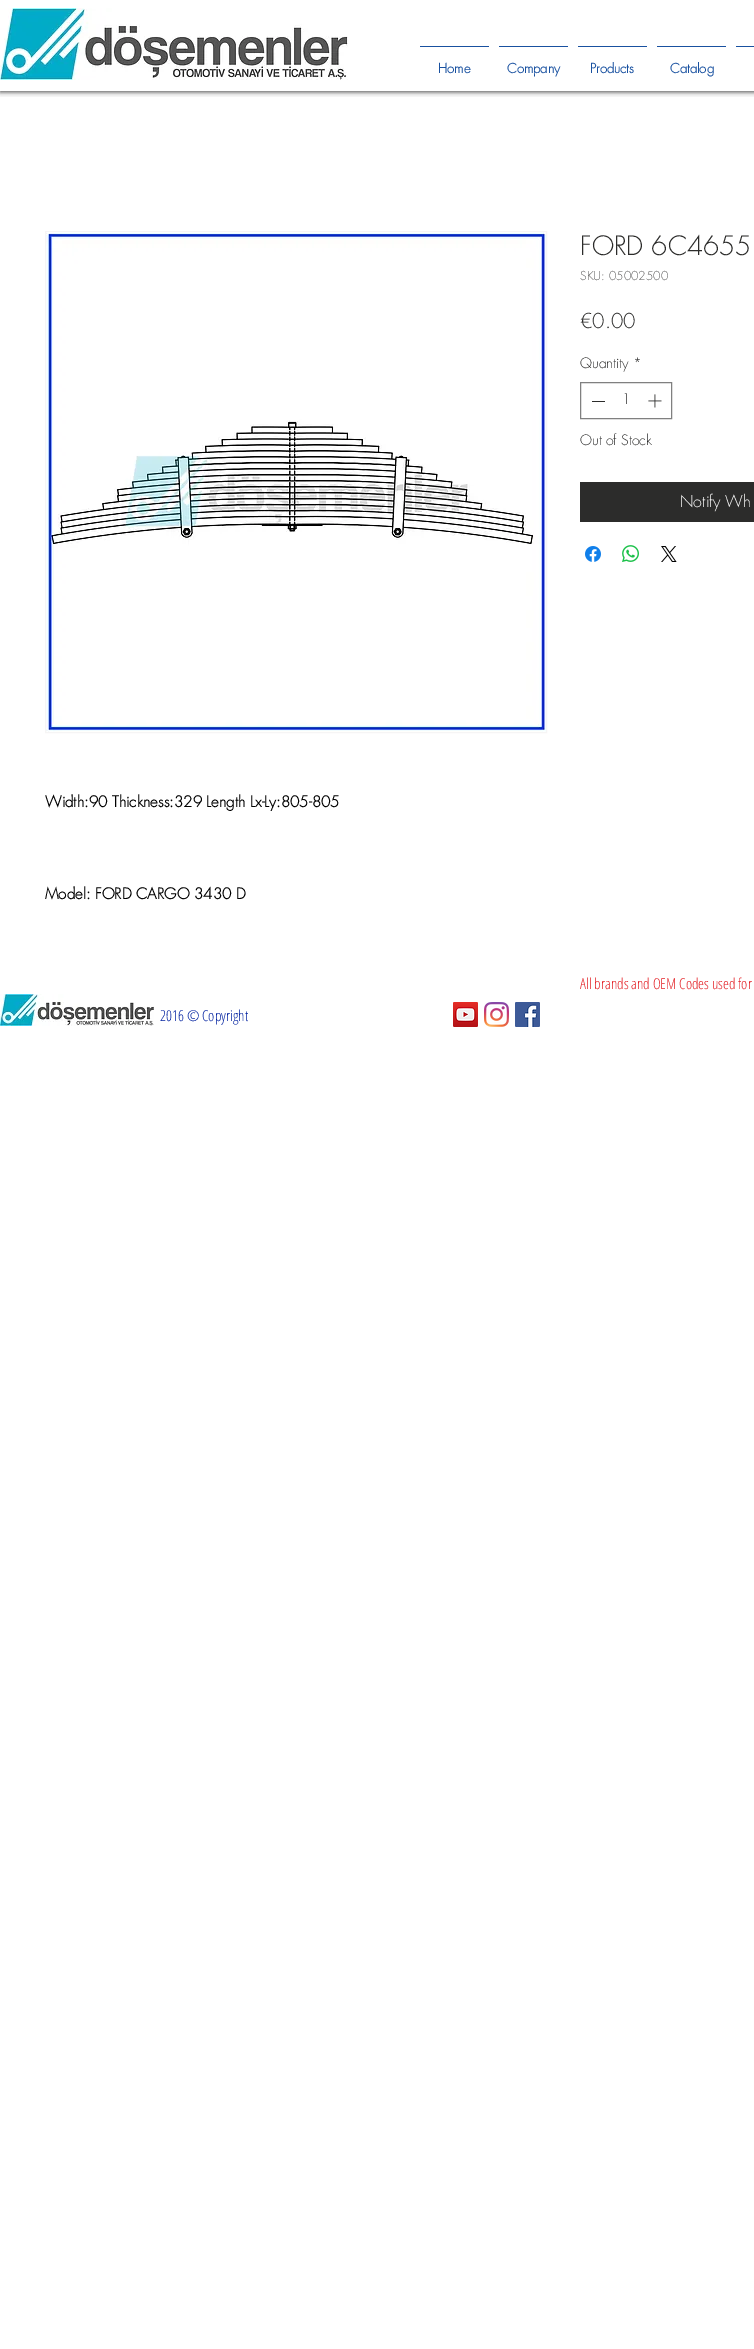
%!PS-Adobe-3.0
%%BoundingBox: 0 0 754 2349
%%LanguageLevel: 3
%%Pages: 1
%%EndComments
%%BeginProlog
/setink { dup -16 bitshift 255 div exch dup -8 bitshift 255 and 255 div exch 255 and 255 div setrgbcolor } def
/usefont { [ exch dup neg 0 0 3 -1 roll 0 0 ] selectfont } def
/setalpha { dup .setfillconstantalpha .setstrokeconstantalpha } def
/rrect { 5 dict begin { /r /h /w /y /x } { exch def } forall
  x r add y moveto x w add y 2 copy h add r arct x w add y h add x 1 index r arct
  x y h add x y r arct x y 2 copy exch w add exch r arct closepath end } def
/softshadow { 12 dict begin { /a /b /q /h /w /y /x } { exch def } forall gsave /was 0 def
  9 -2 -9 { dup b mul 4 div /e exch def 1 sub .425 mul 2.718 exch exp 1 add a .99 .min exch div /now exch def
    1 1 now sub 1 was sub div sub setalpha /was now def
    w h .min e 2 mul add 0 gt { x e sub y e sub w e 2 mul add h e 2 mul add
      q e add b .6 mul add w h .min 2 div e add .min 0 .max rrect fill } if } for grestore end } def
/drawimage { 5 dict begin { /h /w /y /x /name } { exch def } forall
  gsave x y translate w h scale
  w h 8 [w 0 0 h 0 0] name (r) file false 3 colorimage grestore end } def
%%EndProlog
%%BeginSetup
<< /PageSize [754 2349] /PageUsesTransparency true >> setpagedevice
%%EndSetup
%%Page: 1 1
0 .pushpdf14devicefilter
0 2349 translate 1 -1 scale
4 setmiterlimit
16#FFFFFF setink
0 0 754 2349 rectfill
gsave
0 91 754 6 rectclip
16#000000 setink
0 1 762 91 0 2.5 0.7 softshadow
grestore
(img1.raw) 0 8 348 72 drawimage
16#1951A0 setink
736 46 18 1 rectfill
420 46 69 1 rectfill
/futura-Bold 13 usefont
438 73 moveto (Home) show
499 46 69 1 rectfill
507 73 moveto (Company) show
578 46 69 1 rectfill
590 73 moveto (Products) show
657 46 69 1 rectfill
670 73 moveto (Catalog) show
/futura-Light 26 usefont
16#2C2C2B setink
580 255 moveto (FORD 6C4655) show
/futura-Light 12 usefont
16#5E5D5D setink
580 280 moveto (SKU: 05002500) show
/futura-Light 20 usefont
16#2C2C2B setink
580 328 moveto (€0.00) show
/futura-Light 14 usefont
580 368 moveto (Quantity) show
633 368 moveto (*) show
16#808080 setink
580.5 382.5 91 36 rectstroke
16#2C2C2B setink
592 401 13 1 rectfill
622 404 moveto (1) show
(img2.raw) 648 394 14 14 drawimage
580 445 moveto (Out of Stock) show
580 482 174 40 rectfill
/futura-Light 16 usefont
16#FFFFFF setink
680 507 moveto (Notify Wh) show
(img3.raw) 585 546 16 16 drawimage
(img4.raw) 622 545 17 17 drawimage
(img5.raw) 661 546 16 16 drawimage
16#F6F5F5 setink
45.5 231.5 501 501 rectstroke
(img6.raw) 46 232 500 500 drawimage
/futura-Bold 15 usefont
16#000000 setink
45 807 moveto (Width:90 Thickness:329 Length Lx-Ly:805-805) show
45 899 moveto (Model: FORD CARGO 3430 D) show
/OpenSansCondensed-Light 15 usefont
16#E21C21 setink
580 989 moveto (All brands and OEM Codes used for) show
(img7.raw) 0 994 154 32 drawimage
16#00209F setink
160 1021 moveto (2016 © Copyright) show
(img8.raw) 453 1002 25 25 drawimage
(img9.raw) 484 1002 25 25 drawimage
(img10.raw) 515 1002 25 25 drawimage
.poppdf14devicefilter showpage
%%EOF
